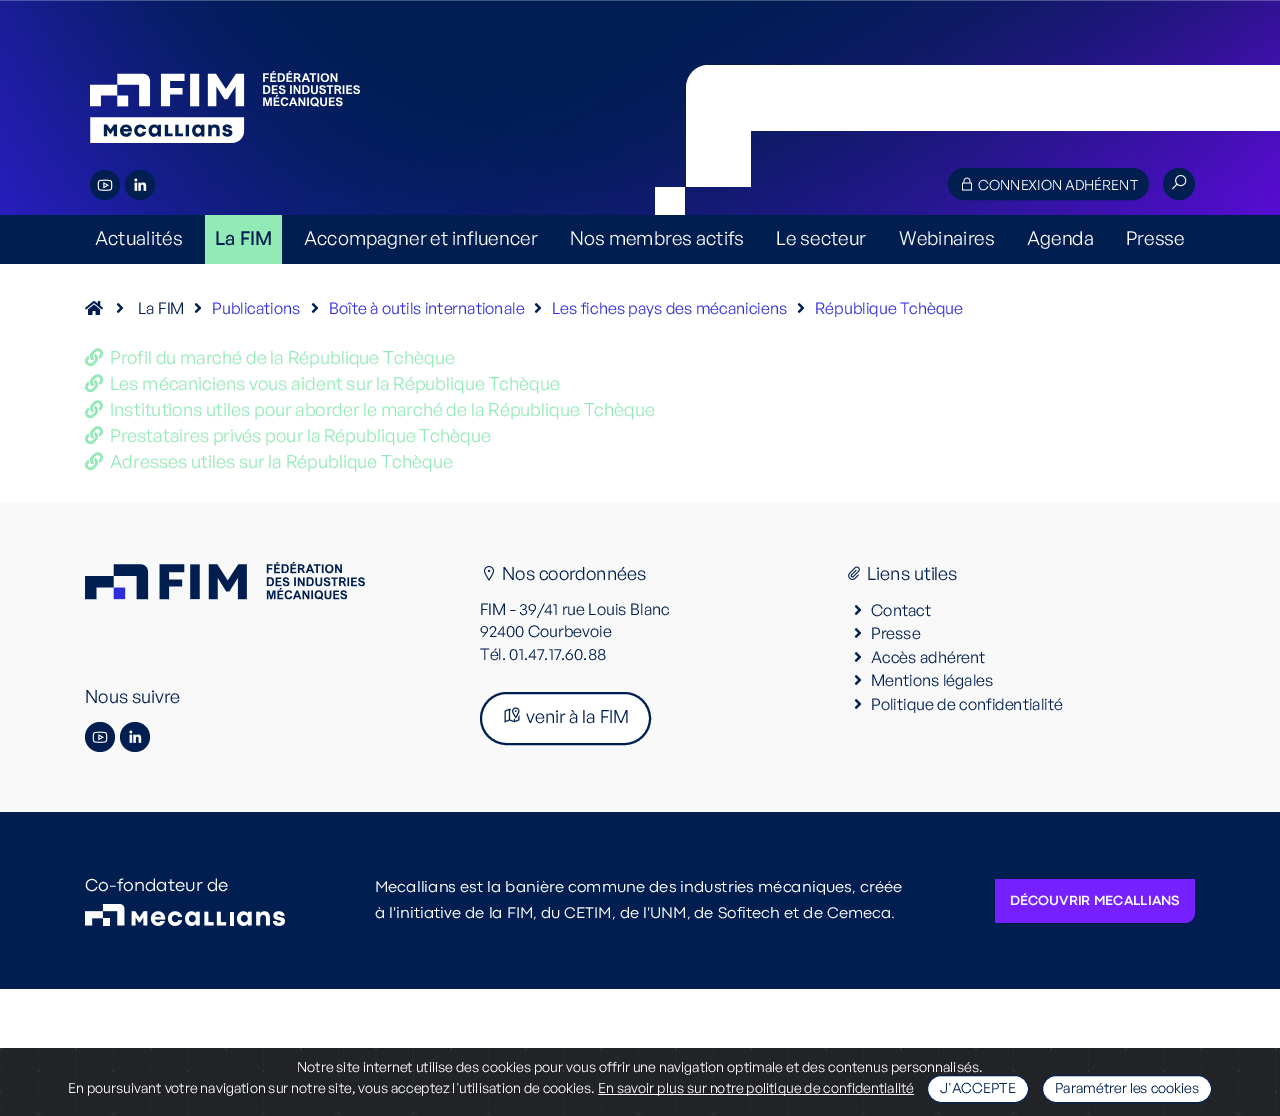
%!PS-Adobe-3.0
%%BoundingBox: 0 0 1280 1116
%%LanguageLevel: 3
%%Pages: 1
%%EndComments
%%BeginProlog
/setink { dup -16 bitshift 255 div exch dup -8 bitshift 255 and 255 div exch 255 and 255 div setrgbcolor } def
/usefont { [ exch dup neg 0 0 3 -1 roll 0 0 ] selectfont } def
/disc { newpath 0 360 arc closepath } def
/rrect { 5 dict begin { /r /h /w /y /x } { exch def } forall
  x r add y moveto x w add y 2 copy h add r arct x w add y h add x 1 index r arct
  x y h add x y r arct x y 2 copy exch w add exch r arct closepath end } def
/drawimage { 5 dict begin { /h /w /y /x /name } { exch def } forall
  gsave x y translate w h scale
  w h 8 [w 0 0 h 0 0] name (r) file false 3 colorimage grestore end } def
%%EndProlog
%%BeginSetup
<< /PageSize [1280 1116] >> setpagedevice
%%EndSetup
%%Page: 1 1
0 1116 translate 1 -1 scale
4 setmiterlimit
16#FFFFFF setink
0 0 1280 1116 rectfill
(img1.raw) 0 0 1280 215 drawimage
(img2.raw) 90 71 270 72 drawimage
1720 65 moveto 708 65 lineto 696 65 686 75 686 88 curveto 686 187 lineto 751 187 lineto 751 131 lineto 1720 131 lineto closepath fill
655 187 30 28 rectfill
16#001E50 setink
105 185 15 disc fill
(img3.raw) 97 179 16 12 drawimage
140 185 15 disc fill
(img4.raw) 134 178 13 13 drawimage
948.5 168.5 200 31 15.5 rrect gsave fill grestore
stroke
(img5.raw) 962 177 10 14 drawimage
/GeneralSans-Regular 14 usefont
16#FFFFFF setink
978 190 moveto (CONNEXION ADHÉRENT) show
16#001E50 setink
1179 184 16 disc fill
(img6.raw) 1171 174 16 16 drawimage
0 215 1280 49 rectfill
/GeneralSans-Regular 19 usefont
16#FFFFFF setink
95 245 moveto (Actualités) show
16#92EAB6 setink
205 215 77 49 rectfill
/GeneralSans-Medium 19 usefont
16#001E50 setink
215 245 moveto (La FIM) show
/GeneralSans-Regular 19 usefont
16#FFFFFF setink
[
    [(Accompagner et influencer) 304 245]
    [(Nos membres actifs) 570 245]
    [(Le secteur) 776 245]
    [(Webinaires) 899 245]
    [(Agenda) 1027 245]
    [(Presse) 1126 245]
] { aload pop moveto show } forall
(img7.raw) 85 301 18 14 drawimage
(img8.raw) 116 303 8 10 drawimage
/GeneralSans-Regular 16 usefont
16#001E50 setink
138 314 moveto (La FIM) show
(img8.raw) 194 303 8 10 drawimage
16#2D2DDB setink
212 314 moveto (Publications) show
(img8.raw) 311 303 8 10 drawimage
329 314 moveto (Boîte à outils internationale) show
(img8.raw) 534 303 8 10 drawimage
552 314 moveto (Les fiches pays des mécaniciens) show
(img8.raw) 797 303 8 10 drawimage
815 314 moveto (République Tchèque) show
(img9.raw) 85 348 18 19 drawimage
/GeneralSans-Regular 18 usefont
16#92EAB6 setink
110 364 moveto (Profil du marché de la République Tchèque) show
(img9.raw) 85 374 18 19 drawimage
110 390 moveto (Les mécaniciens vous aident sur la République Tchèque) show
(img9.raw) 85 400 18 19 drawimage
110 416 moveto (Institutions utiles pour aborder le marché de la République Tchèque) show
(img9.raw) 85 426 18 19 drawimage
110 442 moveto (Prestataires privés pour la République Tchèque) show
(img9.raw) 85 452 18 19 drawimage
110 468 moveto (Adresses utiles sur la République Tchèque) show
16#F9F9F9 setink
0 502 1280 310 rectfill
(img10.raw) 85 562 280 38 drawimage
16#001E50 setink
85 703 moveto (Nous suivre) show
100 737 15 disc fill
(img3.raw) 92 731 16 12 drawimage
135 737 15 disc fill
(img4.raw) 129 730 13 13 drawimage
(img11.raw) 484 566 10 15 drawimage
502 580 moveto (Nos coordonnées) show
/GeneralSans-Regular 16 usefont
[
    [(FIM - 39/41 rue Louis Blanc) 480 615]
    [(92400 Courbevoie) 480 637]
    [(Tél. 01.47.17.60.88) 480 660]
] { aload pop moveto show } forall
16#FFFFFF setink
481 693 169 51 25.5 rrect gsave fill grestore
16#001E50 setink
2 setlinewidth
stroke
(img12.raw) 504 707 16 16 drawimage
/GeneralSans-Regular 18 usefont
526 723 moveto (venir à la FIM) show
(img13.raw) 848 566 12 14 drawimage
867 580 moveto (Liens utiles) show
(img14.raw) 854 605 8 10 drawimage
/GeneralSans-Regular 16 usefont
871 616 moveto (Contact) show
(img14.raw) 854 628 8 10 drawimage
871 639 moveto (Presse) show
(img14.raw) 854 652 8 10 drawimage
871 663 moveto (Accès adhérent) show
(img14.raw) 854 675 8 10 drawimage
871 686 moveto (Mentions légales) show
(img14.raw) 854 699 8 10 drawimage
871 710 moveto (Politique de confidentialité) show
0 812 1280 177 rectfill
/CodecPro-Light 18 usefont
16#FFFFFF setink
85 891 moveto (Co-fondateur de) show
(img15.raw) 85 904 200 22 drawimage
/CodecPro-Light 16 usefont
375 892 moveto (Mecallians est la banière commune des industries mécaniques, créée) show
375 918 moveto (à l'initiative de la FIM, du CETIM, de l'UNM, de Sofitech et de Cemeca.) show
16#761FFF setink
995 879 moveto 1195 879 lineto 1195 913 lineto 1195 918.5 1190.5 923 1185 923 curveto 995 923 lineto closepath fill
/CodecPro-Bold 14 usefont
16#FFFFFF setink
1010 905 moveto (DÉCOUVRIR MECALLIANS) show
(img16.raw) 0 1048 1280 68 drawimage
/GeneralSans-Regular 14 usefont
297 1072 moveto (Notre site internet utilise des cookies pour vous offrir une navigation optimale et des contenus personnalisés.) show
68 1093 moveto (En poursuivant votre navigation sur notre site, vous acceptez l'utilisation de cookies.) show
598 1094 316 1 rectfill
598 1093 moveto (En savoir plus sur notre politique de confidentialité) show
927.5 1075.5 101 27 13.5 rrect gsave fill grestore
16#001E50 setink
1 setlinewidth
stroke
940 1093 moveto (J'ACCEPTE) show
16#FFFFFF setink
1042.5 1075.5 169 27 13.5 rrect gsave fill grestore
16#001E50 setink
stroke
1055 1093 moveto (Paramétrer les cookies) show
showpage
%%EOF
